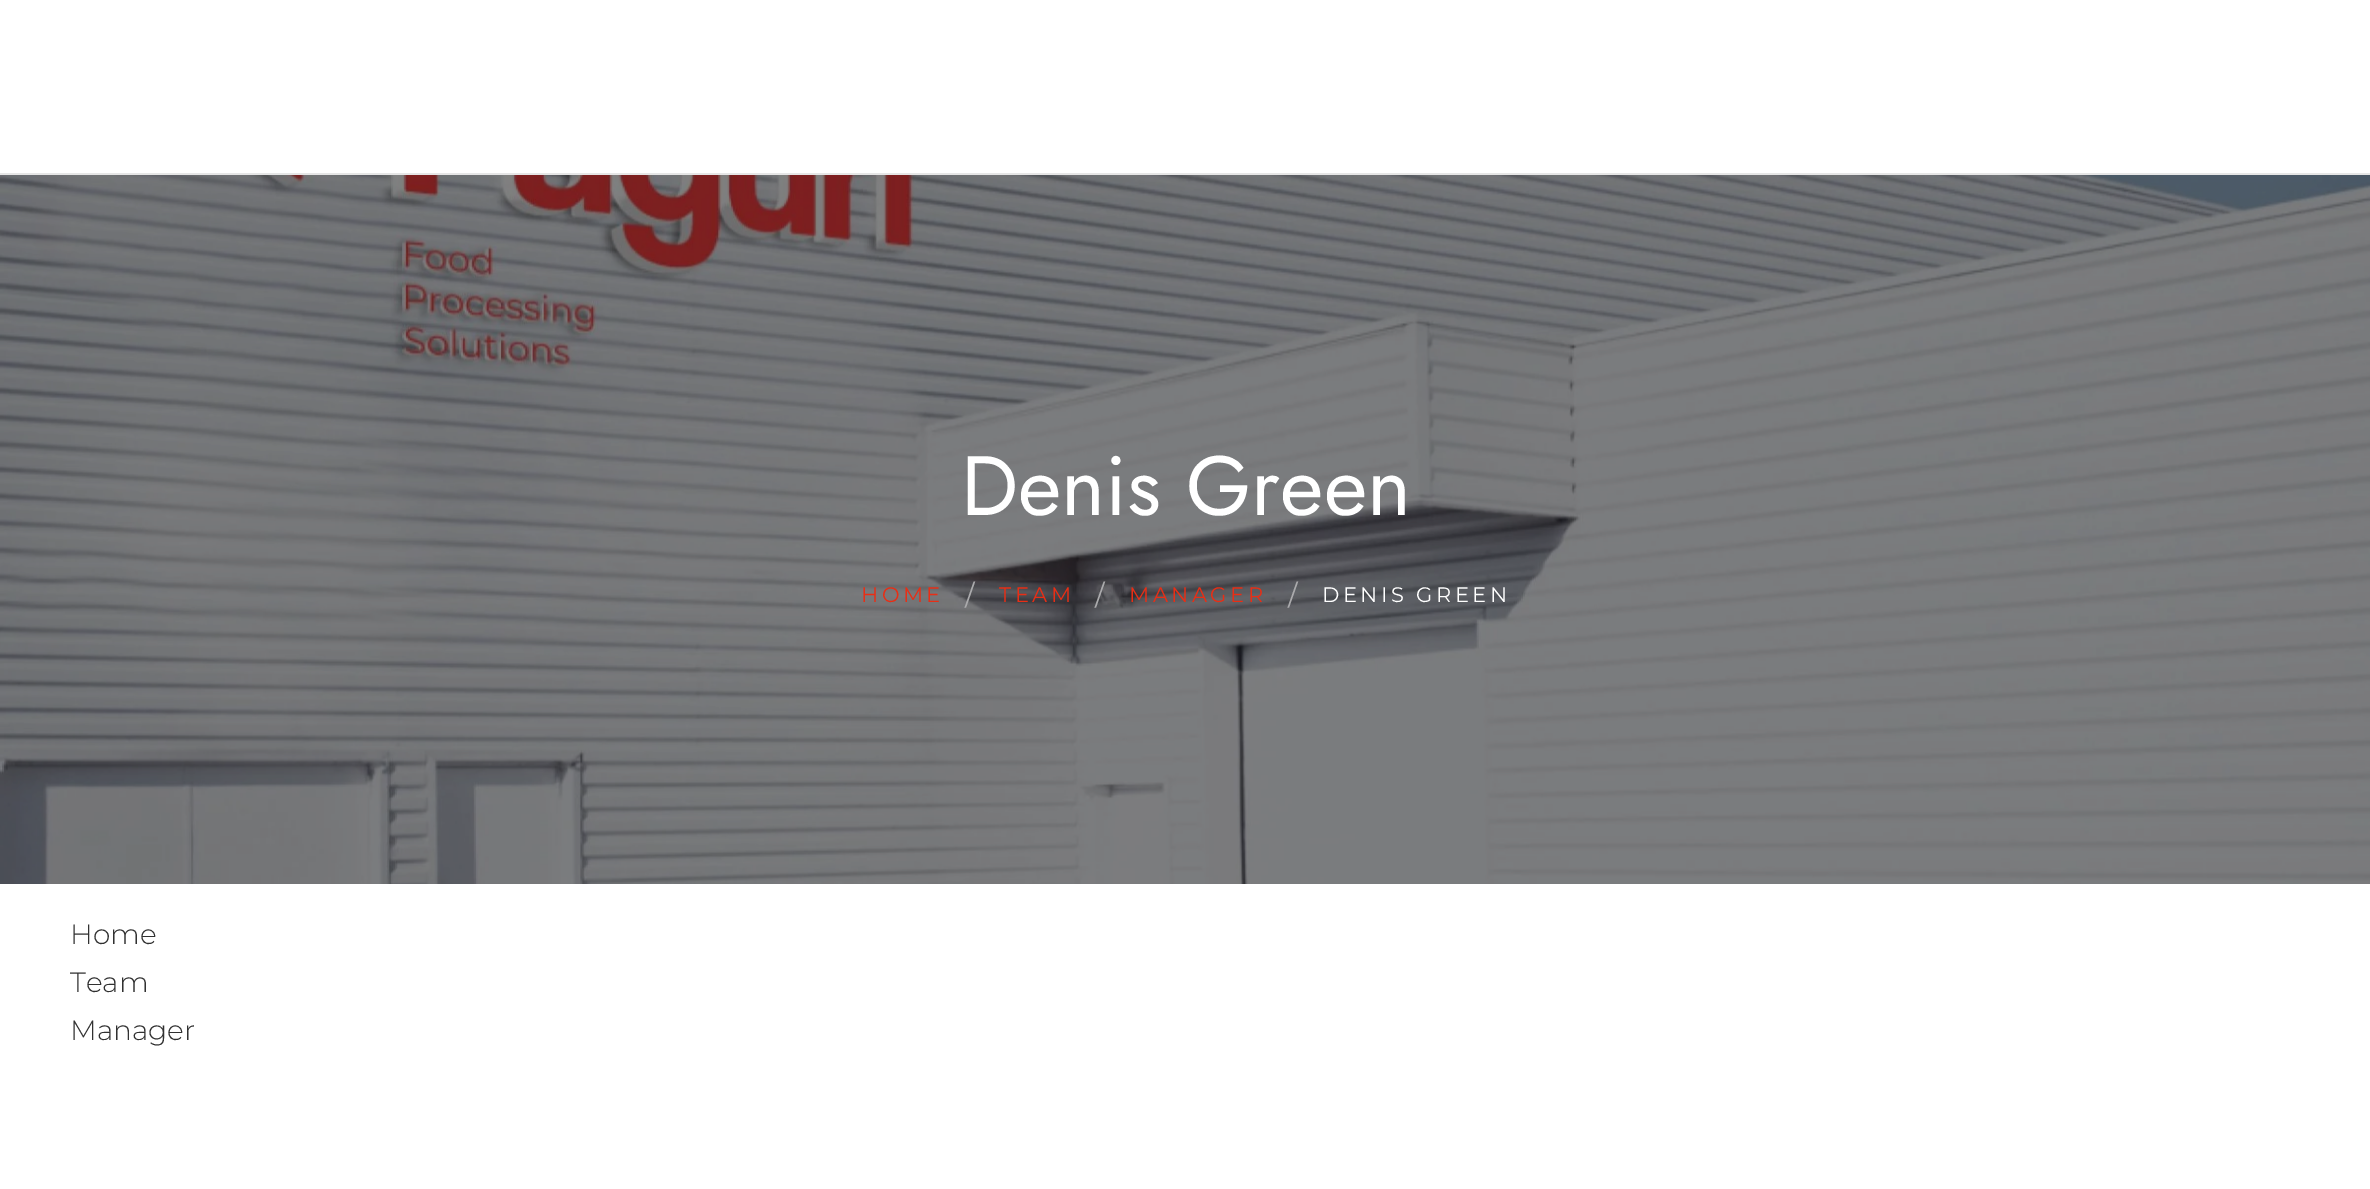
%!PS-Adobe-3.0
%%BoundingBox: 0 0 2370 1189
%%LanguageLevel: 3
%%Pages: 1
%%EndComments
%%BeginProlog
/setink { dup -16 bitshift 255 div exch dup -8 bitshift 255 and 255 div exch 255 and 255 div setrgbcolor } def
/usefont { [ exch dup neg 0 0 3 -1 roll 0 0 ] selectfont } def
/drawimage { 5 dict begin { /h /w /y /x /name } { exch def } forall
  gsave x y translate w h scale
  w h 8 [w 0 0 h 0 0] name (r) file false 3 colorimage grestore end } def
%%EndProlog
%%BeginSetup
<< /PageSize [2370 1189] >> setpagedevice
%%EndSetup
%%Page: 1 1
0 1189 translate 1 -1 scale
4 setmiterlimit
16#FFFFFF setink
0 0 2370 1189 rectfill
16#E6E6E6 setink
0 173 2370 2 rectfill
(img1.raw) 0 175 2370 709 drawimage
/Jost-Regular 84 usefont
16#FFFFFF setink
961 515 moveto (Denis Green) show
/Montserrat-Regular 21 usefont
16#E92E15 setink
861 602 moveto 3.5 0 (HOME) ashow
/Montserrat-Regular 28 usefont
16#ABABAD setink
965 605 moveto 3.5 0 (/) ashow
/Montserrat-Regular 21 usefont
16#E92E15 setink
999 602 moveto 3.5 0 (TEAM) ashow
/Montserrat-Regular 28 usefont
16#ABABAD setink
1095 605 moveto 3.5 0 (/) ashow
/Montserrat-Regular 21 usefont
16#E92E15 setink
1129 602 moveto 3.5 0 (MANAGER) ashow
/Montserrat-Regular 28 usefont
16#ABABAD setink
1288 605 moveto 3.5 0 (/) ashow
/Montserrat-Regular 21 usefont
16#FFFFFF setink
1322 602 moveto 3.5 0 (DENIS GREEN) ashow
/Montserrat-Light 28 usefont
16#313131 setink
[
    [(Home) 70 944]
    [(Team) 70 992]
    [(Manager) 70 1040]
] { aload pop moveto show } forall
showpage
%%EOF
